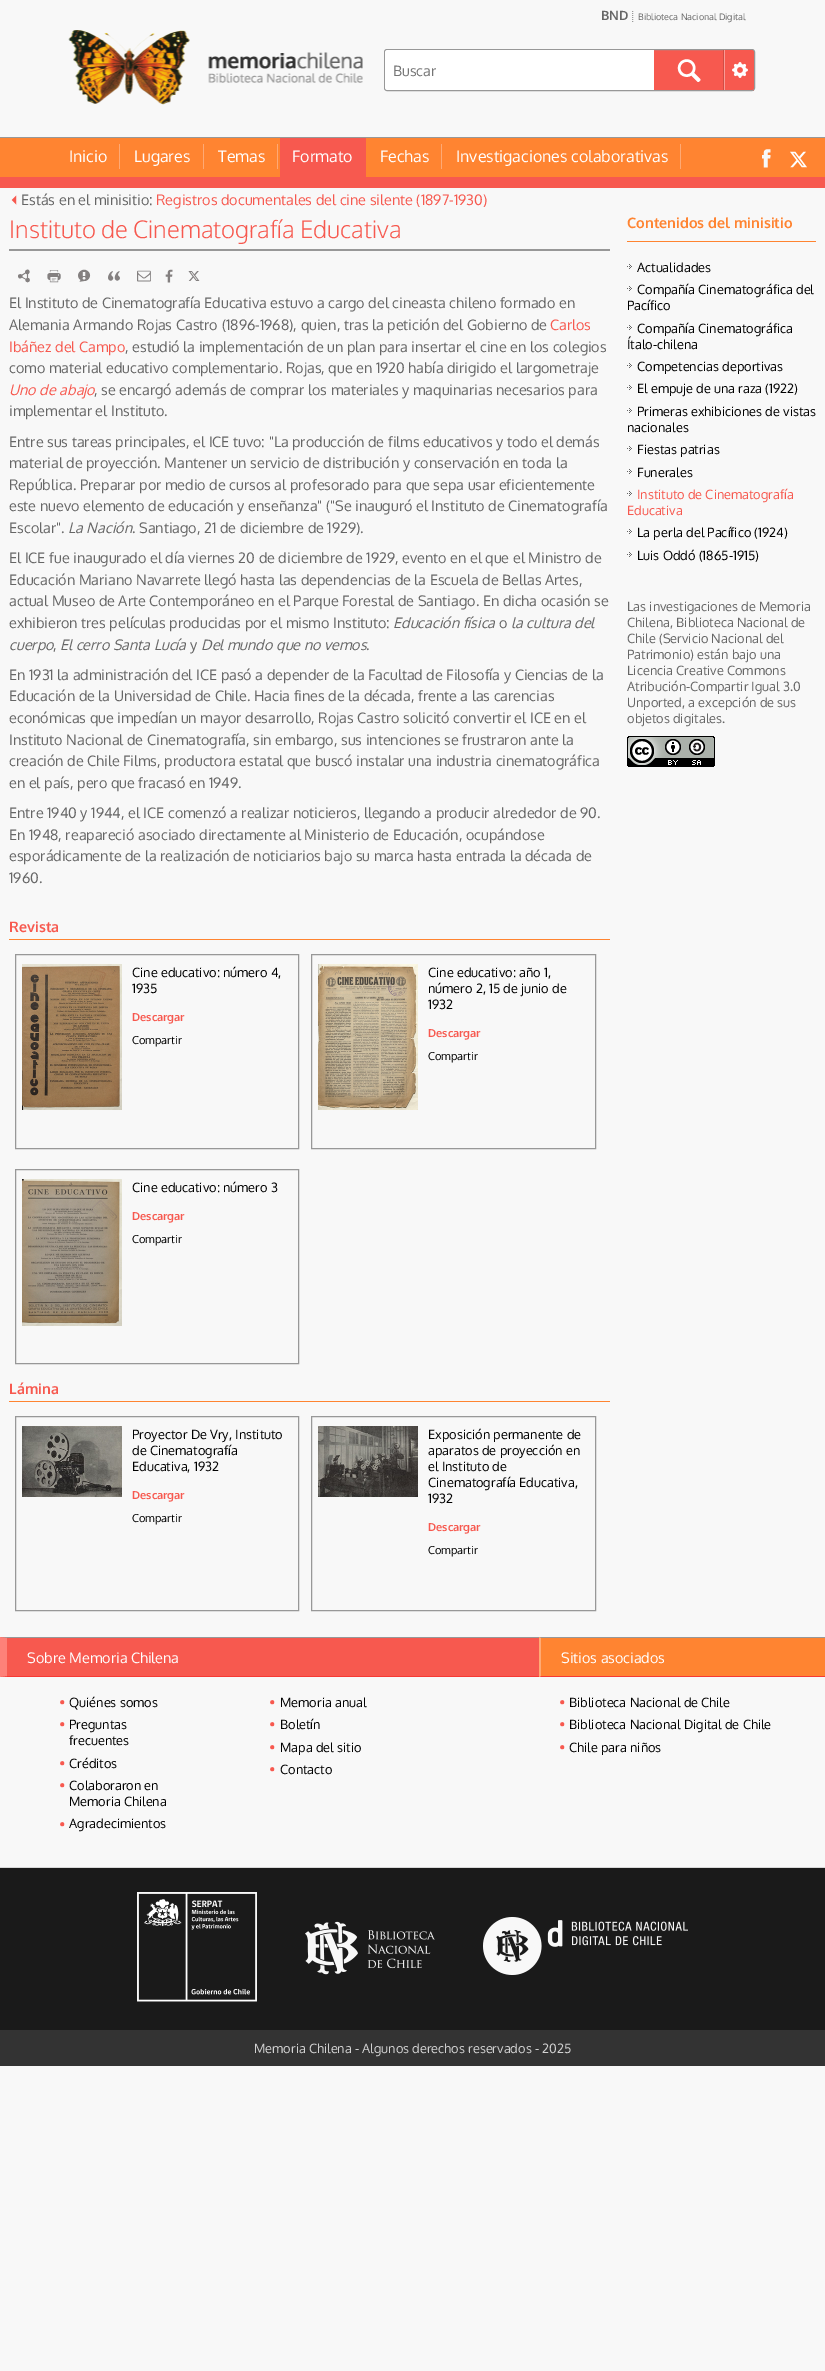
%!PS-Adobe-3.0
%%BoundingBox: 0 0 825 2371
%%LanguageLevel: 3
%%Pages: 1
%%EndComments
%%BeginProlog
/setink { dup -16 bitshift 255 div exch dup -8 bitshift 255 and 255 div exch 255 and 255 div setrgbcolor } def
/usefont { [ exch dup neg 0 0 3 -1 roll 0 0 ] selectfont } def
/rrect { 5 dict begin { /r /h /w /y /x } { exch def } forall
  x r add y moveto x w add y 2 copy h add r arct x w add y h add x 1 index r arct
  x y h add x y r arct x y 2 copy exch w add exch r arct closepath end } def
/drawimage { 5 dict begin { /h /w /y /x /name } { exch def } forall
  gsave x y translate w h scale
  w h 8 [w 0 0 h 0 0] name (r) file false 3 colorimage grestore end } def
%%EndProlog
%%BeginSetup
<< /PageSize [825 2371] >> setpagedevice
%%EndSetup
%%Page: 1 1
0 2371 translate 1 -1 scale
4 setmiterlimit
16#F8F8F8 setink
0 0 825 2371 rectfill
/Oxygen-Bold 12.8 usefont
16#666666 setink
601 20 moveto (BND) show
16#999999 setink
[1 1] 0 setdash
632.5 11 moveto 632.5 22 lineto stroke
/Oxygen-Regular 9 usefont
16#666666 setink
638 20 moveto (Biblioteca Nacional Digital) show
(img1.raw) 68 30 295 75 drawimage
16#FFFFFF setink
384 49 371 42 3 rrect fill
16#F7594F setink
654 50 100 41 rectfill
16#989898 setink
[] 0 setdash
384.5 49.5 370 41 2.5 rrect stroke
16#FFFFFF setink
388 50 moveto 654 50 lineto 654 90 lineto 388 90 lineto 386.5 90 385 88.5 385 87 curveto 385 53 lineto 385 51.5 386.5 50 388 50 curveto closepath fill
/Oxygen-Regular 14.4 usefont
16#757575 setink
393 76 moveto (Buscar) show
(img2.raw) 677 59 24 23 drawimage
16#D24C43 setink
723 50 1 40 rectfill
16#F7594F setink
724 50 moveto 751 50 lineto 752.5 50 754 51.5 754 53 curveto 754 87 lineto 754 88.5 752.5 90 751 90 curveto 724 90 lineto closepath fill
16#FA9B95 setink
724 50 1 40 rectfill
(img3.raw) 732 62 16 16 drawimage
[
    [0 138 825 39 16#FF8431]
    [0 137 825 1 16#989898]
    [0 177 825 11 16#F7594F]
    [119 144 1 25 16#FEA974]
] { aload pop setink rectfill } forall
/Oxygen-Regular 16 usefont
16#FFFFFF setink
69 162 moveto (Inicio) show
16#FEA974 setink
203 144 1 25 rectfill
16#FFFFFF setink
134 162 moveto (Lugares) show
16#FEA974 setink
277 144 1 25 rectfill
16#FFFFFF setink
218 162 moveto (Temas) show
16#F7594F setink
280 138 86 39 rectfill
16#FFFFFF setink
292 162 moveto (Formato) show
16#FEA974 setink
441 144 1 25 rectfill
16#FFFFFF setink
380 162 moveto (Fechas) show
16#FEA974 setink
680 144 1 25 rectfill
16#FFFFFF setink
456 162 moveto (Investigaciones colaborativas) show
(img4.raw) 762 149 9 19 drawimage
(img5.raw) 790 151 17 17 drawimage
(img6.raw) 11 195 6 10 drawimage
/Oxygen-Regular 14.4 usefont
16#666666 setink
21 205 moveto (Estás en el minisitio:) show
16#F7594F setink
156 205 moveto (Registros documentales del cine silente \(1897-1930\)) show
16#989898 setink
9 249 601 2 rectfill
/Oxygen-Light 24 usefont
16#F7594F setink
9 238 moveto (Instituto de Cinematografía Educativa) show
(img7.raw) 18 269 12 14 drawimage
(img8.raw) 47 270 14 13 drawimage
(img9.raw) 78 269 13 13 drawimage
(img10.raw) 108 271 12 10 drawimage
(img11.raw) 137 270 14 12 drawimage
(img12.raw) 165 269 8 14 drawimage
(img13.raw) 188 271 12 10 drawimage
/Oxygen-Regular 14.4 usefont
16#666666 setink
9 308 moveto (El Instituto de Cinematografía Educativa estuvo a cargo del cineasta chileno formado en) show
9 330 moveto (Alemania Armando Rojas Castro \(1896-1968\), quien, tras la petición del Gobierno de) show
16#F7594F setink
550 330 moveto (Carlos) show
9 352 moveto (Ibáñez del Campo) show
16#666666 setink
125 352 moveto (, estudió la implementación de un plan para insertar el cine en los colegios) show
9 373 moveto (como material educativo complementario. Rojas, que en 1920 había dirigido el largometraje) show
/Oxygen-Italic 14.4 usefont
16#F7594F setink
9 395 moveto (Uno de abajo) show
/Oxygen-Regular 14.4 usefont
16#666666 setink
[
    [(, se encargó además de comprar los materiales y maquinarias necesarios para) 94 395]
    [(implementar el Instituto.) 9 416]
    [(Entre sus tareas principales, el ICE tuvo: "La producción de films educativos y todo el demás) 9 447]
    [(material de proyección. Mantener un servicio de distribución y conservación en toda la) 9 468]
    [(República. Preparar por medio de cursos al profesorado para que sepa usar eficientemente) 9 490]
    [(este nuevo elemento de educación y enseñanza" \("Se inauguró el Instituto de Cinematografía) 9 511]
    [(Escolar".) 9 533]
] { aload pop moveto show } forall
/Oxygen-Italic 14.4 usefont
68 533 moveto (La Nación) show
/Oxygen-Regular 14.4 usefont
[
    [(. Santiago, 21 de diciembre de 1929\).) 132 533]
    [(El ICE fue inaugurado el día viernes 20 de diciembre de 1929, evento en el que el Ministro de) 9 563]
    [(Educación Mariano Navarrete llegó hasta las dependencias de la Escuela de Bellas Artes,) 9 585]
    [(actual Museo de Arte Contemporáneo en el Parque Forestal de Santiago. En dicha ocasión se) 9 606]
    [(exhibieron tres películas producidas por el mismo Instituto:) 9 628]
] { aload pop moveto show } forall
/Oxygen-Italic 14.4 usefont
393 628 moveto (Educación física) show
/Oxygen-Regular 14.4 usefont
499 628 moveto (o) show
/Oxygen-Italic 14.4 usefont
511 628 moveto (la cultura del) show
9 650 moveto (cuerpo) show
/Oxygen-Regular 14.4 usefont
53 650 moveto (,) show
/Oxygen-Italic 14.4 usefont
60 650 moveto (El cerro Santa Lucía) show
/Oxygen-Regular 14.4 usefont
190 650 moveto (y) show
/Oxygen-Italic 14.4 usefont
201 650 moveto (Del mundo que no vemos) show
/Oxygen-Regular 14.4 usefont
[
    [(.) 366 650]
    [(En 1931 la administración del ICE pasó a depender de la Facultad de Filosofía y Ciencias de la) 9 680]
    [(Educación de la Universidad de Chile. Hacia fines de la década, frente a las carencias) 9 701]
    [(económicas que impedían un mayor desarrollo, Rojas Castro solicitó convertir el ICE en el) 9 723]
    [(Instituto Nacional de Cinematografía, sin embargo, sus intenciones se frustraron ante la) 9 745]
    [(creación de Chile Films, productora estatal que buscó instalar una industria cinematográfica) 9 766]
    [(en el país, pero que fracasó en 1949.) 9 788]
    [(Entre 1940 y 1944, el ICE comenzó a realizar noticieros, llegando a producir alrededor de 90.) 9 818]
    [(En 1948, reapareció asociado directamente al Ministerio de Educación, ocupándose) 9 840]
    [(esporádicamente de la realización de noticiarios bajo su marca hasta entrada la década de) 9 861]
    [(1960.) 9 883]
] { aload pop moveto show } forall
16#FF8431 setink
9 939 601 1 rectfill
/Oxygen-Bold 14.4 usefont
16#F7594F setink
9 932 moveto (Revista) show
16#989898 setink
15.5 954.5 283 194 rectstroke
(img14.raw) 22 964 100 146 drawimage
/Oxygen-Regular 12.8 usefont
16#000000 setink
132 977 moveto (Cine educativo: número 4,) show
132 993 moveto (1935) show
/Oxygen-Bold 11 usefont
16#F7594F setink
132 1021 moveto (Descargar) show
/Oxygen-Regular 11 usefont
16#000000 setink
132 1044 moveto (Compartir) show
16#989898 setink
311.5 954.5 284 194 rectstroke
(img15.raw) 318 964 100 146 drawimage
/Oxygen-Regular 12.8 usefont
16#000000 setink
[
    [(Cine educativo: año 1,) 428 977]
    [(número 2, 15 de junio de) 428 993]
    [(1932) 428 1009]
] { aload pop moveto show } forall
/Oxygen-Bold 11 usefont
16#F7594F setink
428 1037 moveto (Descargar) show
/Oxygen-Regular 11 usefont
16#000000 setink
428 1060 moveto (Compartir) show
16#989898 setink
15.5 1169.5 283 194 rectstroke
(img16.raw) 22 1179 100 147 drawimage
/Oxygen-Regular 12.8 usefont
16#000000 setink
132 1192 moveto (Cine educativo: número 3) show
/Oxygen-Bold 11 usefont
16#F7594F setink
132 1220 moveto (Descargar) show
/Oxygen-Regular 11 usefont
16#000000 setink
132 1243 moveto (Compartir) show
16#FF8431 setink
9 1401 601 1 rectfill
/Oxygen-Bold 14.4 usefont
16#F7594F setink
9 1394 moveto (Lámina) show
16#989898 setink
15.5 1416.5 283 194 rectstroke
(img17.raw) 22 1426 100 71 drawimage
/Oxygen-Regular 12.8 usefont
16#000000 setink
[
    [(Proyector De Vry, Instituto) 132 1439]
    [(de Cinematografía) 132 1455]
    [(Educativa, 1932) 132 1471]
] { aload pop moveto show } forall
/Oxygen-Bold 11 usefont
16#F7594F setink
132 1499 moveto (Descargar) show
/Oxygen-Regular 11 usefont
16#000000 setink
132 1522 moveto (Compartir) show
16#989898 setink
311.5 1416.5 284 194 rectstroke
(img18.raw) 318 1426 100 71 drawimage
/Oxygen-Regular 12.8 usefont
16#000000 setink
[
    [(Exposición permanente de) 428 1439]
    [(aparatos de proyección en) 428 1455]
    [(el Instituto de) 428 1471]
    [(Cinematografía Educativa,) 428 1487]
    [(1932) 428 1503]
] { aload pop moveto show } forall
/Oxygen-Bold 11 usefont
16#F7594F setink
428 1531 moveto (Descargar) show
/Oxygen-Regular 11 usefont
16#000000 setink
428 1554 moveto (Compartir) show
16#FF8431 setink
627 241 189 1 rectfill
/Oxygen-Bold 14.4 usefont
627 228 moveto (Contenidos del minisitio) show
(img19.raw) 627 264 5 5 drawimage
/Oxygen-Regular 12.8 usefont
16#000000 setink
637 272 moveto (Actualidades) show
(img19.raw) 627 286 5 5 drawimage
637 294 moveto (Compañía Cinematográfica del) show
627 310 moveto (Pacífico) show
(img19.raw) 627 325 5 5 drawimage
637 333 moveto (Compañía Cinematográfica) show
627 349 moveto (Ítalo-chilena) show
(img19.raw) 627 363 5 5 drawimage
637 371 moveto (Competencias deportivas) show
(img19.raw) 627 385 5 5 drawimage
637 393 moveto (El empuje de una raza \(1922\)) show
(img19.raw) 627 408 5 5 drawimage
637 416 moveto (Primeras exhibiciones de vistas) show
627 432 moveto (nacionales) show
(img19.raw) 627 446 5 5 drawimage
637 454 moveto (Fiestas patrias) show
(img19.raw) 627 469 5 5 drawimage
637 477 moveto (Funerales) show
(img19.raw) 627 491 5 5 drawimage
16#F7594F setink
637 499 moveto (Instituto de Cinematografía) show
627 515 moveto (Educativa) show
(img19.raw) 627 529 5 5 drawimage
16#000000 setink
637 537 moveto (La perla del Pacífico \(1924\)) show
(img19.raw) 627 552 5 5 drawimage
637 560 moveto (Luis Oddó \(1865-1915\)) show
16#666666 setink
[
    [(Las investigaciones de Memoria) 627 611]
    [(Chilena, Biblioteca Nacional de) 627 627]
    [(Chile \(Servicio Nacional del) 627 643]
    [(Patrimonio\) están bajo una) 627 659]
    [(Licencia Creative Commons) 627 675]
    [(Atribución-Compartir Igual 3.0) 627 691]
    [(Unported, a excepción de sus) 627 707]
    [(objetos digitales.) 627 723]
] { aload pop moveto show } forall
(img20.raw) 627 736 88 31 drawimage
16#F7594F setink
0 1637 539 40 rectfill
16#989898 setink
-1 1637 moveto 541 1637 lineto 541 1638 lineto 7 1638 lineto closepath fill
16#F73934 setink
541 1677 moveto -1 1677 lineto 7 1676 lineto 541 1676 lineto closepath fill
16#FE8179 setink
-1 1677 moveto -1 1637 lineto 7 1638 lineto 7 1676 lineto closepath fill
/Oxygen-Regular 14.4 usefont
16#FFFFFF setink
27 1663 moveto (Sobre Memoria Chilena) show
(img21.raw) 60 1700 5 5 drawimage
/Oxygen-Regular 12.8 usefont
16#000000 setink
69 1707 moveto (Quiénes somos) show
(img21.raw) 60 1722 5 5 drawimage
69 1729 moveto (Preguntas) show
69 1745 moveto (frecuentes) show
(img21.raw) 60 1761 5 5 drawimage
69 1768 moveto (Créditos) show
(img21.raw) 60 1783 5 5 drawimage
69 1790 moveto (Colaboraron en) show
69 1806 moveto (Memoria Chilena) show
(img21.raw) 60 1822 5 5 drawimage
69 1828 moveto (Agradecimientos) show
(img21.raw) 270 1700 5 5 drawimage
280 1707 moveto (Memoria anual) show
(img21.raw) 270 1722 5 5 drawimage
280 1729 moveto (Boletín) show
(img21.raw) 270 1745 5 5 drawimage
280 1752 moveto (Mapa del sitio) show
(img21.raw) 270 1767 5 5 drawimage
280 1774 moveto (Contacto) show
16#FF8431 setink
539 1637 286 40 rectfill
16#989898 setink
539 1637 moveto 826 1637 lineto 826 1638 lineto 541 1638 lineto closepath fill
16#F73934 setink
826 1677 moveto 539 1677 lineto 541 1676 lineto 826 1676 lineto closepath fill
16#FFAA74 setink
539 1677 moveto 539 1637 lineto 541 1638 lineto 541 1676 lineto closepath fill
/Oxygen-Regular 14.4 usefont
16#FFFFFF setink
561 1663 moveto (Sitios asociados) show
(img21.raw) 560 1700 5 5 drawimage
/Oxygen-Regular 12.8 usefont
16#000000 setink
569 1707 moveto (Biblioteca Nacional de Chile) show
(img21.raw) 560 1722 5 5 drawimage
569 1729 moveto (Biblioteca Nacional Digital de Chile) show
(img21.raw) 560 1745 5 5 drawimage
569 1752 moveto (Chile para niños) show
16#1A1A1A setink
0 1868 825 162 rectfill
16#D7D7D7 setink
0 1867 825 1 rectfill
(img22.raw) 137 1892 120 110 drawimage
(img23.raw) 305 1921 130 54 drawimage
(img24.raw) 483 1917 205 58 drawimage
16#333333 setink
0 2030 825 36 rectfill
16#D2D2D2 setink
254 2053 moveto (Memoria Chilena - Algunos derechos reservados - 2025) show
showpage
%%EOF
